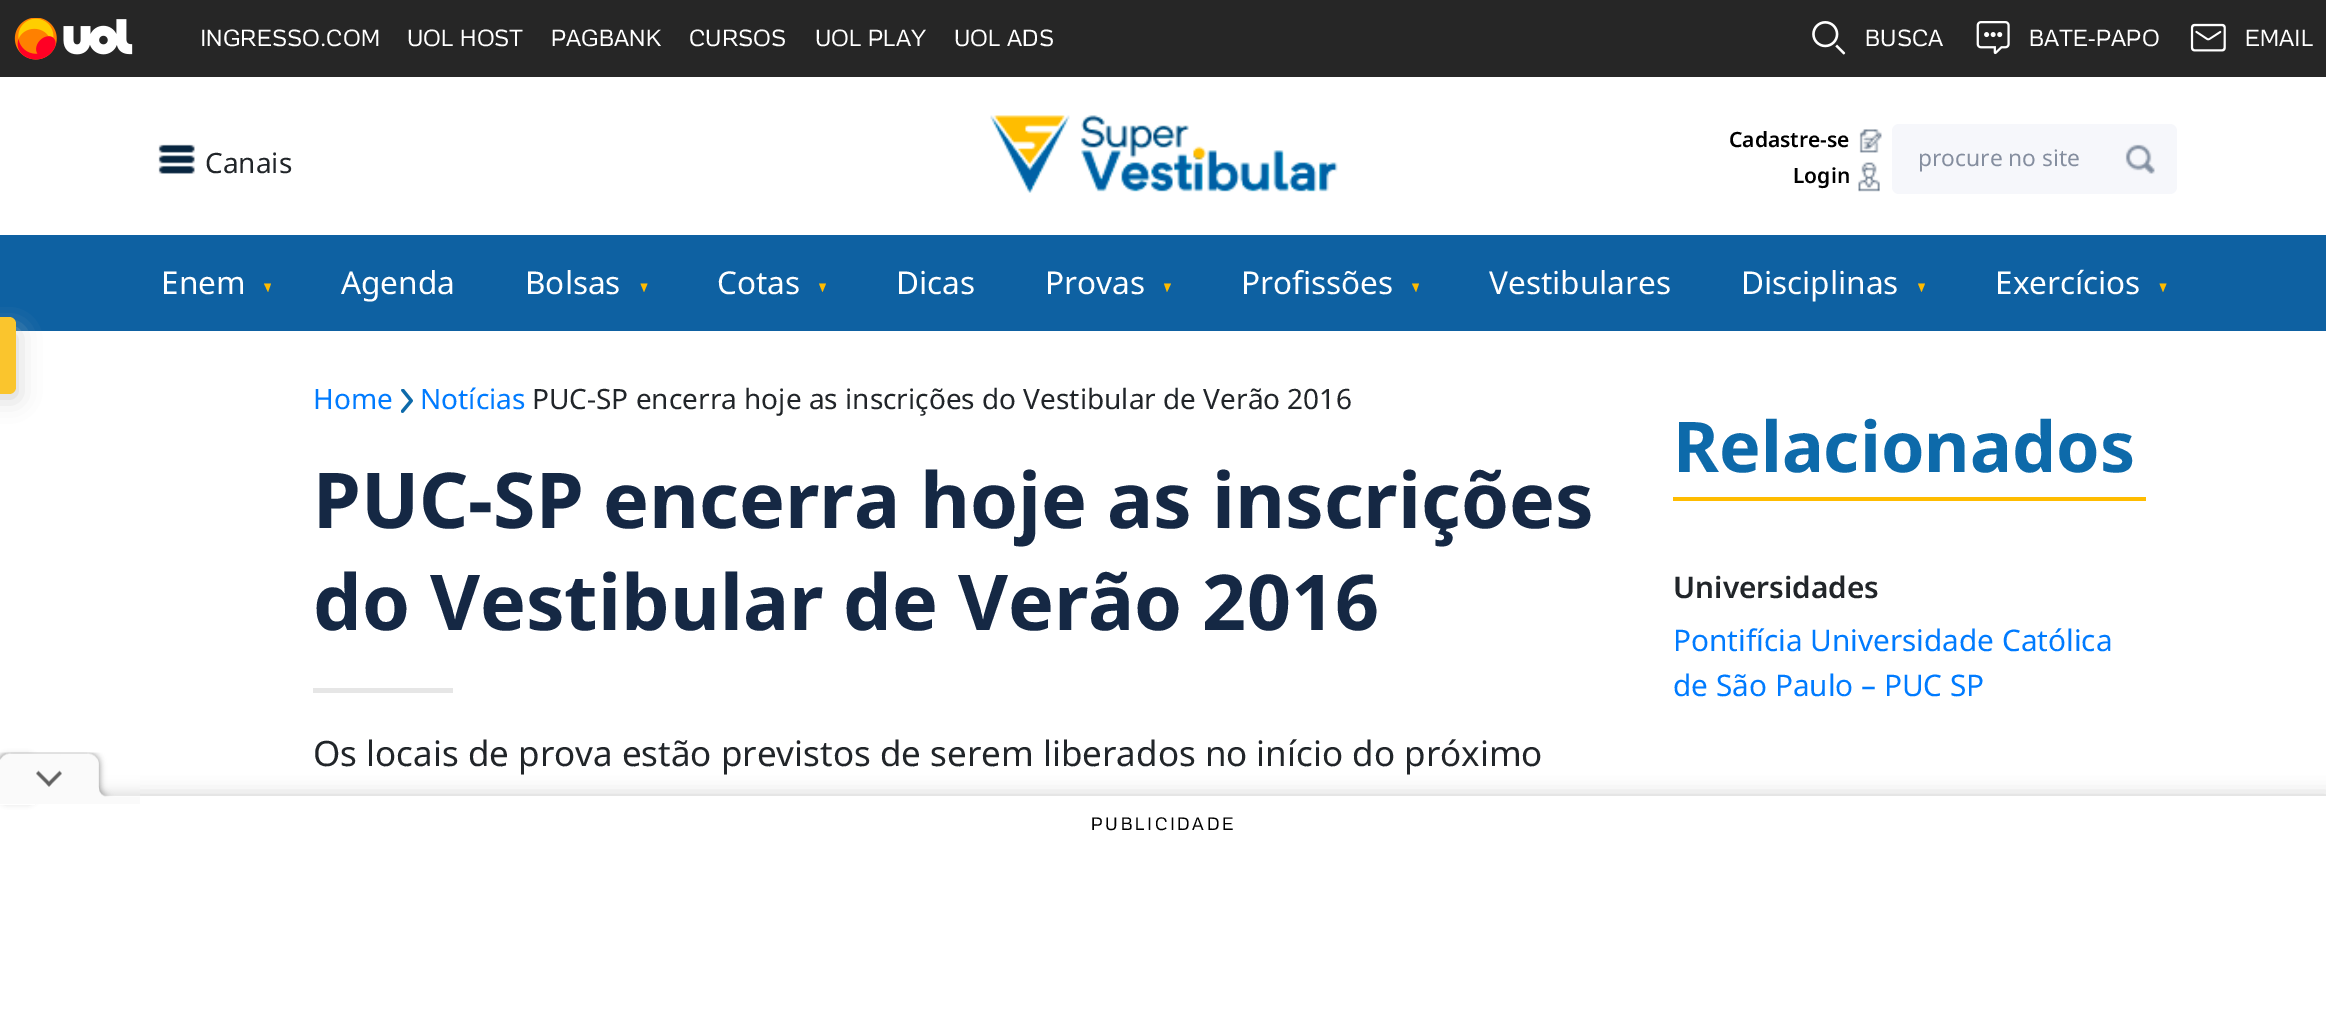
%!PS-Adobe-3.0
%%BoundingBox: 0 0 2326 1023
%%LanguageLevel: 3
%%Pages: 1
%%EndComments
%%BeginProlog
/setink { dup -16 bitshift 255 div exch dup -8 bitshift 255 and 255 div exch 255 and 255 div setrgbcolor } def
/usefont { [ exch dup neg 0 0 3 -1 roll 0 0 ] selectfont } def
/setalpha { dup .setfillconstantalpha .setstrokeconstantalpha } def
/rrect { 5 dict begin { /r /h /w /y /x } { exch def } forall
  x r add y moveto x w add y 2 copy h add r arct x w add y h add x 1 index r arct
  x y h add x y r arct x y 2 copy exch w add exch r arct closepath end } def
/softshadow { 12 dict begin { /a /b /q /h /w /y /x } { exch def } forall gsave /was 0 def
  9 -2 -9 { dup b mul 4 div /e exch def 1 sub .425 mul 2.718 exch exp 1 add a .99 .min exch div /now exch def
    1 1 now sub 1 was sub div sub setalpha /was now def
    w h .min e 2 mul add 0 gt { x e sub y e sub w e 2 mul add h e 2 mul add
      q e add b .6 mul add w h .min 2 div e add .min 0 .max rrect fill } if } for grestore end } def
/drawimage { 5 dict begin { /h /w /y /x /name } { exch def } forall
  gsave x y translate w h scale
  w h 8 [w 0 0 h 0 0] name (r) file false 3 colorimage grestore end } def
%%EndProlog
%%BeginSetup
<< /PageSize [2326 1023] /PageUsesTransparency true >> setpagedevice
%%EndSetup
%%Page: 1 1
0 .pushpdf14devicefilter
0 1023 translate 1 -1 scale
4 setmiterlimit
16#FFFFFF setink
0 0 2326 1023 rectfill
16#262626 setink
0 0 2326 77 rectfill
(img1.raw) 14 18 119 42 drawimage
/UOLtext-Regular 22.75 usefont
16#FFFFFF setink
[
    [(INGRESSO.COM) 200 46]
    [(UOL HOST) 407 46]
    [(PAGBANK) 551 46]
    [(CURSOS) 689 46]
    [(UOL PLAY) 815 46]
    [(UOL ADS) 954 46]
] { aload pop moveto show } forall
(img2.raw) 1812 21 34 34 drawimage
1865 46 moveto (BUSCA) show
(img3.raw) 1976 21 34 34 drawimage
2029 46 moveto (BATE-PAPO) show
(img4.raw) 2190 23 36 29 drawimage
2245 46 moveto (EMAIL) show
(img5.raw) 158 144 37 30 drawimage
/NotoSans-Regular 28 usefont
16#212529 setink
205 173 moveto (Canais) show
(img6.raw) 990 115 348 78 drawimage
/NotoSans-SemiBold 21 usefont
16#000000 setink
1729 147 moveto (Cadastre-se) show
(img7.raw) 1859 129 23 24 drawimage
1793 183 moveto (Login) show
(img8.raw) 1858 162 22 30 drawimage
16#F6F7FB setink
1892 124 285 70 7 rrect fill
/NotoSans-Regular 22.75 usefont
16#858E9F setink
1918 166 moveto (procure no site) show
(img9.raw) 2125 144 30 30 drawimage
16#0E61A2 setink
0 235 2326 96 rectfill
/NotoSans-Regular 31.5 usefont
16#FFFFFF setink
161 294 moveto (Enem) show
16#FFBB00 setink
264 283.5 moveto 271 283.5 lineto 268 292 lineto closepath fill
16#FFFFFF setink
341 294 moveto (Agenda) show
525 294 moveto (Bolsas) show
16#FFBB00 setink
640.5 283.5 moveto 647.5 283.5 lineto 644 292 lineto closepath fill
16#FFFFFF setink
717 294 moveto (Cotas) show
16#FFBB00 setink
819 283.5 moveto 826 283.5 lineto 822.5 292 lineto closepath fill
16#FFFFFF setink
896 294 moveto (Dicas) show
1045 294 moveto (Provas) show
16#FFBB00 setink
1164 283.5 moveto 1171 283.5 lineto 1167 292 lineto closepath fill
16#FFFFFF setink
1241 294 moveto (Profissões) show
16#FFBB00 setink
1412 283.5 moveto 1419 283.5 lineto 1416 292 lineto closepath fill
16#FFFFFF setink
1489 294 moveto (Vestibulares) show
1741 294 moveto (Disciplinas) show
16#FFBB00 setink
1918 283.5 moveto 1925 283.5 lineto 1921.5 292 lineto closepath fill
16#FFFFFF setink
1995 294 moveto (Exercícios) show
16#FFBB00 setink
2159.5 283.5 moveto 2166.5 283.5 lineto 2163 292 lineto closepath fill
16#CCCCCC setink
-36 334 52 63 0 12 1 softshadow
16#FAC52D setink
-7 317 moveto 9 317 lineto 13 317 16 320 16 324 curveto 16 387 lineto 16 391 13 394 9 394 curveto -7 394 lineto closepath fill
/NotoSans-Regular 28 usefont
16#007BFF setink
313 409 moveto (Home) show
(img10.raw) 401 389 12 24 drawimage
420 409 moveto (Notícias) show
16#212529 setink
532 409 moveto (PUC-SP encerra hoje as inscrições do Vestibular de Verão 2016) show
/NotoSans-Bold 77 usefont
16#152844 setink
313 528 moveto (PUC-SP encerra hoje as inscrições) show
313 630 moveto (do Vestibular de Verão 2016) show
16#E6E6E6 setink
313 688 140 5 rectfill
/NotoSans-Regular 35 usefont
16#212529 setink
313 766 moveto (Os locais de prova estão previstos de serem liberados no início do próximo) show
/NotoSans-Bold 70 usefont
16#0D6AAA setink
1673 472 moveto (Relacionados) show
16#FFBC00 setink
1673 497 473 4 rectfill
/NotoSans-SemiBold 29.75 usefont
16#212529 setink
1673 598 moveto (Universidades) show
/NotoSans-Regular 29.75 usefont
16#007BFF setink
1673 651 moveto (Pontifícia Universidade Católica) show
1673 696 moveto (de São Paulo – PUC SP) show
16#000000 setink
0 796 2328 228 0 9 0.2 softshadow
16#FFFFFF setink
0 796 2326 227 rectfill
16#000000 setink
0 756 35 46 7 3.5 0.27 softshadow
16#FFFFFF setink
0 804 35 1 rectfill
(img11.raw) 0 752 140 52 drawimage
/UOLtext-Regular 17.5 usefont
16#000000 setink
1091 830 moveto 2.6 0 (PUBLICIDADE) ashow
.poppdf14devicefilter showpage
%%EOF
